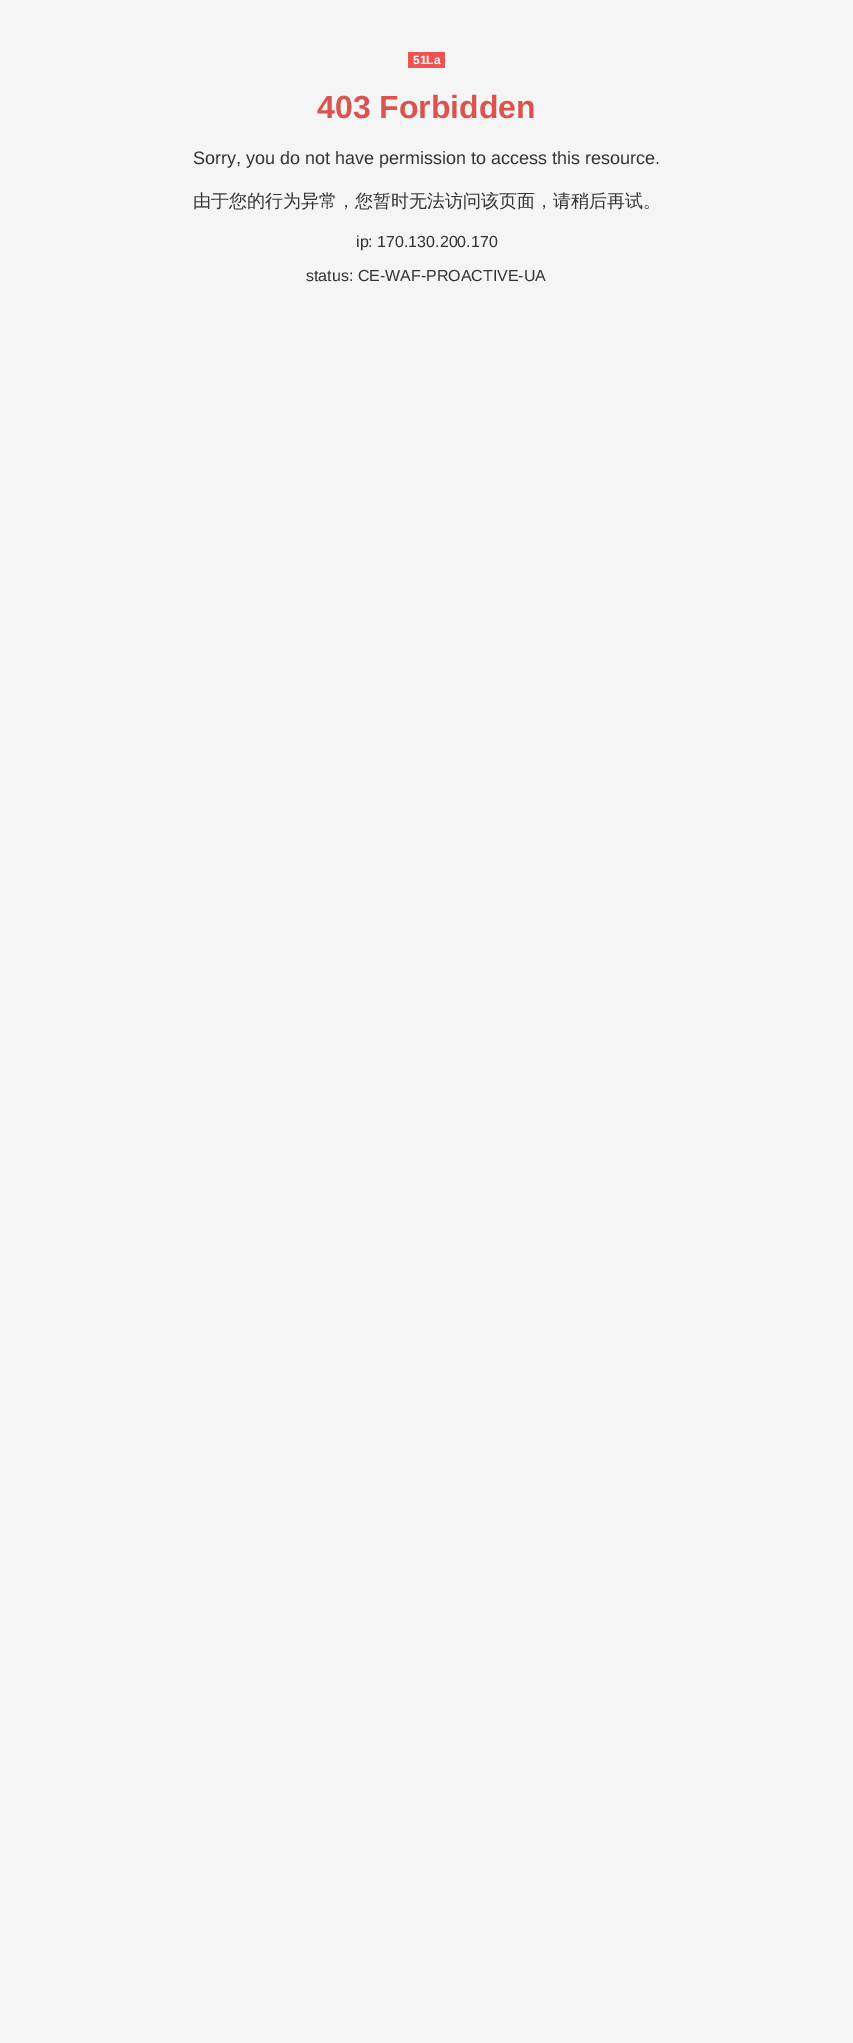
%!PS-Adobe-3.0
%%BoundingBox: 0 0 853 2043
%%LanguageLevel: 3
%%Pages: 1
%%EndComments
%%BeginProlog
/setink { dup -16 bitshift 255 div exch dup -8 bitshift 255 and 255 div exch 255 and 255 div setrgbcolor } def
/usefont { [ exch dup neg 0 0 3 -1 roll 0 0 ] selectfont } def
%%EndProlog
%%BeginSetup
<< /PageSize [853 2043] >> setpagedevice
%%EndSetup
%%Page: 1 1
0 2043 translate 1 -1 scale
4 setmiterlimit
16#F5F5F5 setink
0 0 853 2043 rectfill
16#EF5350 setink
408 52 37 16 rectfill
/LiberationSans-Bold 12 usefont
16#FFFFFF setink
413 64 moveto (51La) show
/LiberationSans-Bold 32 usefont
16#D9534F setink
317 118 moveto (403 Forbidden) show
/LiberationSans-Regular 18 usefont
16#333333 setink
193 164 moveto (Sorry, you do not have permission to access this resource.) show
/WenQuanYiZenHei-Medium 18 usefont
193 207 moveto (由于您的行为异常，您暂时无法访问该页面，请稍后再试。) show
/LiberationSans-Regular 16 usefont
356 247 moveto (ip: 170.130.200.170) show
306 281 moveto (status: CE-WAF-PROACTIVE-UA) show
showpage
%%EOF
